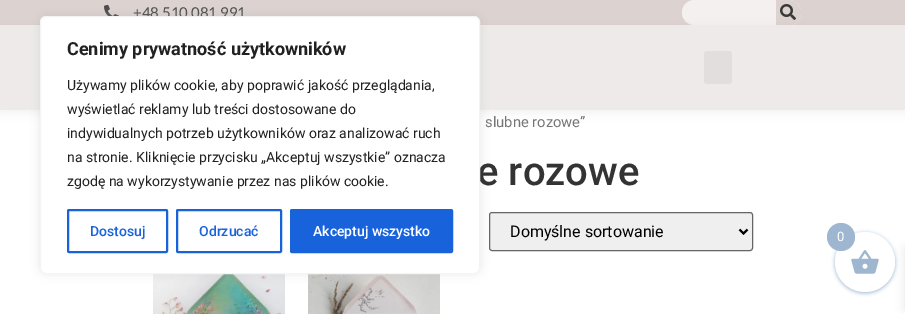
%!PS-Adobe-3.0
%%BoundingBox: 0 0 905 314
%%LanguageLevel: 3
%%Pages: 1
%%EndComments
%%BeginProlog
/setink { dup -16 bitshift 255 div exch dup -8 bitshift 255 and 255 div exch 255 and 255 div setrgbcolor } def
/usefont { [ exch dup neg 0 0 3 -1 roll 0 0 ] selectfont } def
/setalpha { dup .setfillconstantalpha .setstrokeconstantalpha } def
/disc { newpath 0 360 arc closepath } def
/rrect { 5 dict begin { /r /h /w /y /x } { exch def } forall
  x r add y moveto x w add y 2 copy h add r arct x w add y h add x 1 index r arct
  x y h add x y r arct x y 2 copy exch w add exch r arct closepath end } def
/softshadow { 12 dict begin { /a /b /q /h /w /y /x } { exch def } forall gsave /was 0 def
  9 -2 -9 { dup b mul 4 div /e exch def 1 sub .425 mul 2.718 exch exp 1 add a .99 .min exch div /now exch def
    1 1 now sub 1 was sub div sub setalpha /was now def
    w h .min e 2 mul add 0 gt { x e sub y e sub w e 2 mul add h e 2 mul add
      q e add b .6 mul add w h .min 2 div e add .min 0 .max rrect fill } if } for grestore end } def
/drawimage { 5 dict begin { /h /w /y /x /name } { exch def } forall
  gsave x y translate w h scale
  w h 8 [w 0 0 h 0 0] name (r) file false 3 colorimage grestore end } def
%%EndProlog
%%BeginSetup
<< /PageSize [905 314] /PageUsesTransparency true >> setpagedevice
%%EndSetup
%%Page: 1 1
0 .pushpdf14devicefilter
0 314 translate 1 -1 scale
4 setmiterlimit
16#FFFFFF setink
0 0 905 314 rectfill
16#DCD2D0 setink
0 0 905 25 rectfill
(img1.raw) 104 4 15 12 drawimage
/Lato-Regular 15 usefont
16#4A4A4A setink
133 18 moveto (+48 510 081 991) show
16#F3F0EF setink
682 0 119 25 12.5 rrect fill
16#DCD2D0 setink
776 0 moveto 788.5 0 lineto 795.5 0 801 5.5 801 12.5 curveto 801 19.5 795.5 25 788.5 25 curveto 776 25 lineto closepath fill
(img2.raw) 780 4 16 16 drawimage
16#000000 setink
0 28 905 85 0 5 0.05 softshadow
16#EEEAE9 setink
0 25 905 85 rectfill
16#E2DEDD setink
704 51 28 33 3 rrect fill
16#EFEFEF setink
489.5 212.5 263 38 2.5 rrect gsave fill grestore
16#666666 setink
stroke
(img3.raw) 153 274 132 40 drawimage
(img4.raw) 308 274 132 40 drawimage
16#ACABAB setink
40 15 440 258 6 5 0.3 softshadow
/Roboto-Medium 40 usefont
16#333333 setink
477 185 moveto (e rozowe) show
16#FFFFFF setink
40.5 16.5 439 257 5.5 rrect gsave fill grestore
16#F4F4F4 setink
stroke
/Roboto-Bold 18 usefont
16#212121 setink
67 55 moveto (Cenimy prywatność użytkowników) show
/Roboto-Regular 14 usefont
[
    [(Używamy plików cookie, aby poprawić jakość przeglądania,) 67 90]
    [(wyświetlać reklamy lub treści dostosowane do) 67 114]
    [(indywidualnych potrzeb użytkowników oraz analizować ruch) 67 138]
    [(na stronie. Kliknięcie przycisku „Akceptuj wszystkie” oznacza) 67 162]
    [(zgodę na wykorzystywanie przez nas plików cookie.) 67 186]
] { aload pop moveto show } forall
16#1863DC setink
2 setlinewidth
68 210 99 42 1 rrect stroke
/Roboto-Medium 14 usefont
90 236 moveto (Dostosuj) show
177 210 104 42 1 rrect stroke
199 236 moveto (Odrzucać) show
291 210 161 42 1 rrect gsave fill grestore
stroke
16#FFFFFF setink
313 236 moveto (Akceptuj wszystko) show
/Roboto-Regular 14.75 usefont
16#767676 setink
485 127 moveto (slubne rozowe”) show
16#000000 setink
739.5 229.5 moveto 743.5 233.5 lineto 747.5 229.5 lineto stroke
/Roboto-Regular 16 usefont
510 237 moveto (Domyślne sortowanie) show
16#9EB6D0 setink
835 233 60 60 30 2 1 softshadow
16#000000 setink
905 249 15 60 0 5 0.1 softshadow
16#FFFFFF setink
865 262 30 disc fill
(img5.raw) 851 250 28 24 drawimage
16#9EB6D0 setink
841 237 14 disc fill
/Roboto-Regular 13 usefont
16#FFFFFF setink
837 241 moveto (0) show
.poppdf14devicefilter showpage
%%EOF
